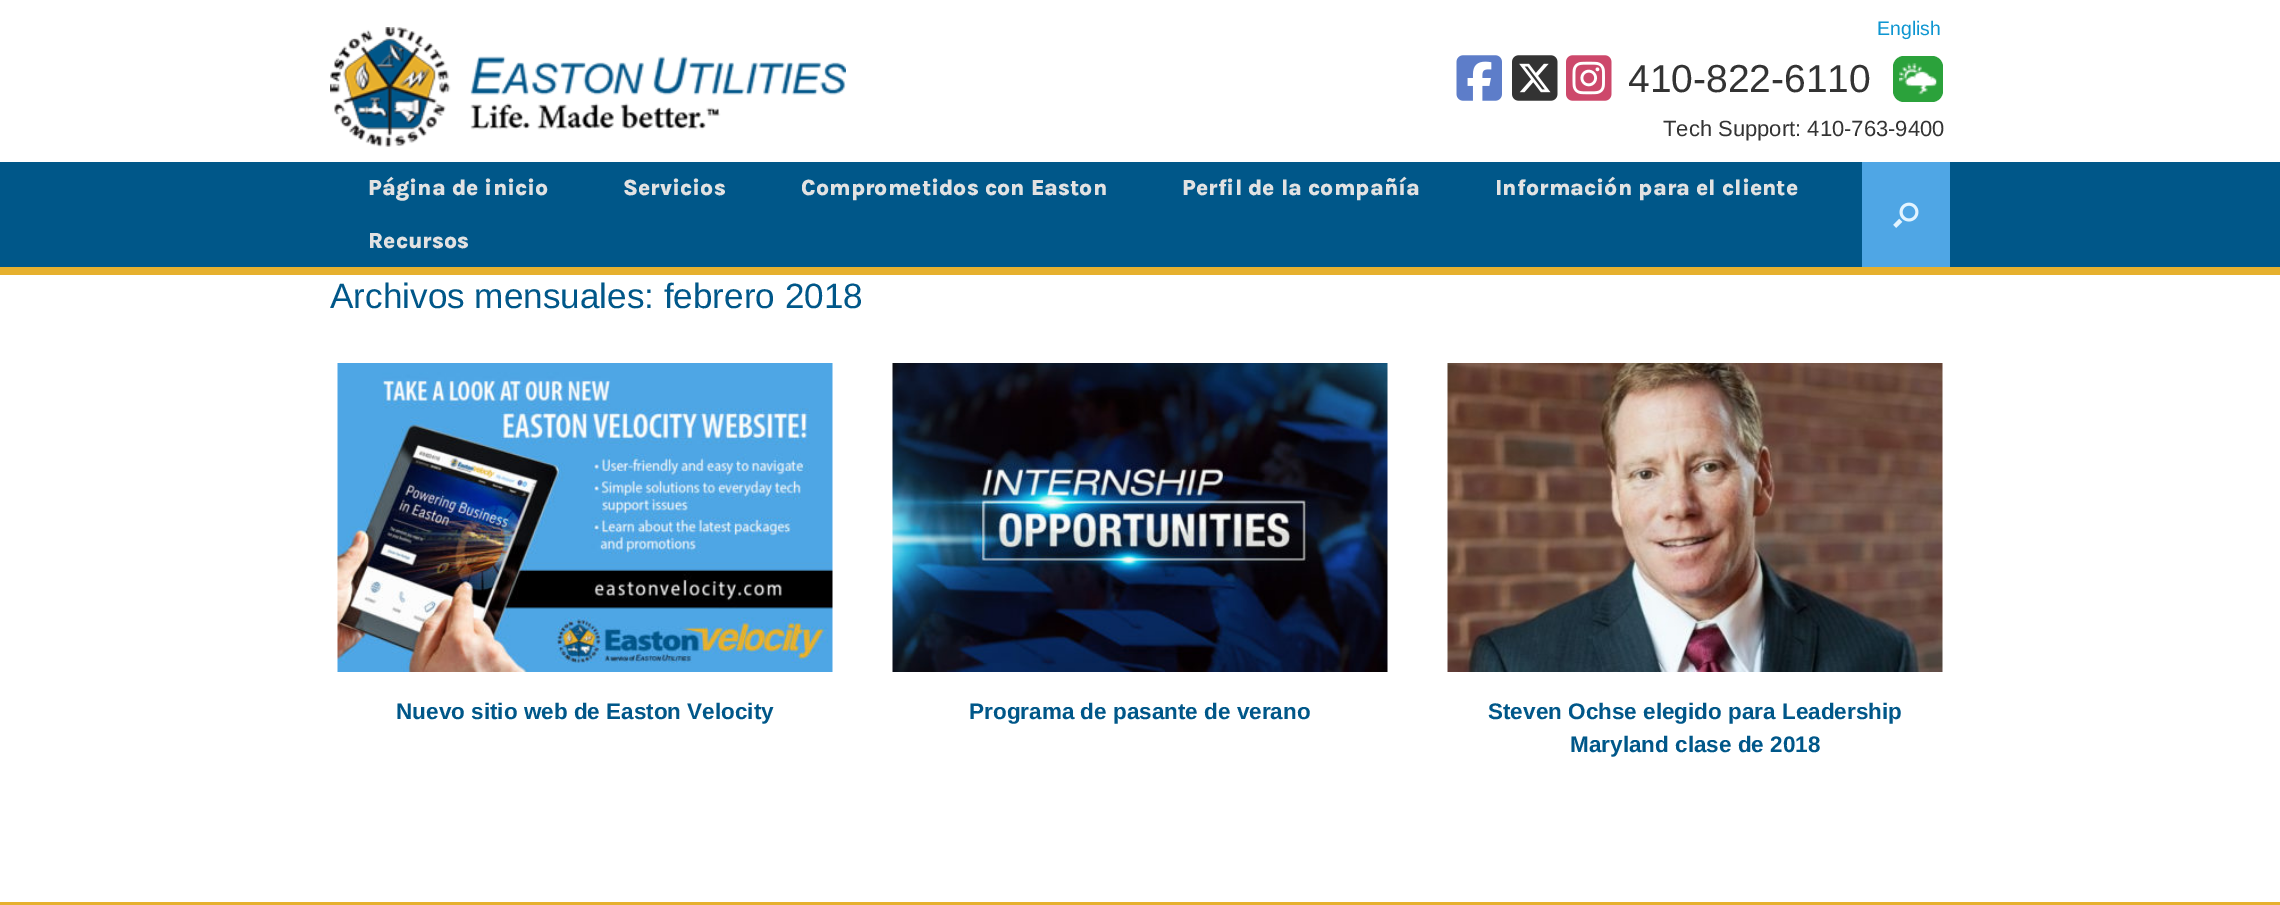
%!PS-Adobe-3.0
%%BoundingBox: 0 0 2280 905
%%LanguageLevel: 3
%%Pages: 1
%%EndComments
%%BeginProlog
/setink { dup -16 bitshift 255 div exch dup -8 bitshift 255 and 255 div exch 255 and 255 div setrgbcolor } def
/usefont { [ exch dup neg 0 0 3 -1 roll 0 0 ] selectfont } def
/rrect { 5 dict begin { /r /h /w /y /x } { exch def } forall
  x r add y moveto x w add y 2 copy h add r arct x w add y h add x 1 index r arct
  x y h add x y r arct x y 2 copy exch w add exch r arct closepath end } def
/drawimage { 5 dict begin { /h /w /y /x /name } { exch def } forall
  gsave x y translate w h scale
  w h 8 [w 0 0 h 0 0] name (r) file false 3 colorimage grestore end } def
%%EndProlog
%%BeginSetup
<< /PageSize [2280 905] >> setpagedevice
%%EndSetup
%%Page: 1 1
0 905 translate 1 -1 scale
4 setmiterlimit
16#FFFFFF setink
0 0 2280 905 rectfill
(img1.raw) 330 27 516 120 drawimage
/LiberationSans-Regular 19.5 usefont
16#0E96D1 setink
1877 35 moveto (English) show
(img2.raw) 1456 55 46 46 drawimage
(img3.raw) 1512 55 46 46 drawimage
(img4.raw) 1566 55 46 46 drawimage
16#2BA23B setink
1893 56 50 46 11 rrect fill
/LiberationSans-Regular 39 usefont
16#333333 setink
1628 92 moveto (410-822-6110) show
(img5.raw) 1899 63 38 32 drawimage
/LiberationSans-Regular 22 usefont
1663 136 moveto (Tech Support: 410-763-9400) show
16#005789 setink
0 162 2280 105 rectfill
16#E6B02E setink
0 267 2280 8 rectfill
/Karla-ExtraBold 22.5 usefont
16#E2E2E2 setink
[
    [(Página de inicio) 368 195]
    [(Servicios) 623 195]
    [(Comprometidos con Easton) 801 195]
    [(Perfil de la compañía) 1182 195]
    [(Información para el cliente) 1495 195]
    [(Recursos) 368 248]
] { aload pop moveto show } forall
16#4FA6E5 setink
1862 162 88 105 rectfill
(img6.raw) 1893 202 26 26 drawimage
/LiberationSans-Regular 35.1 usefont
16#005789 setink
330 308 moveto (Archivos mensuales: febrero 2018) show
(img7.raw) 337 363 496 309 drawimage
/LiberationSans-Bold 22.5 usefont
396 719 moveto (Nuevo sitio web de Easton Velocity) show
(img8.raw) 892 363 496 309 drawimage
969 719 moveto (Programa de pasante de verano) show
(img9.raw) 1447 363 496 309 drawimage
1488 719 moveto (Steven Ochse elegido para Leadership) show
1570 752 moveto (Maryland clase de 2018) show
16#E6B02E setink
0 902 2280 3 rectfill
showpage
%%EOF
